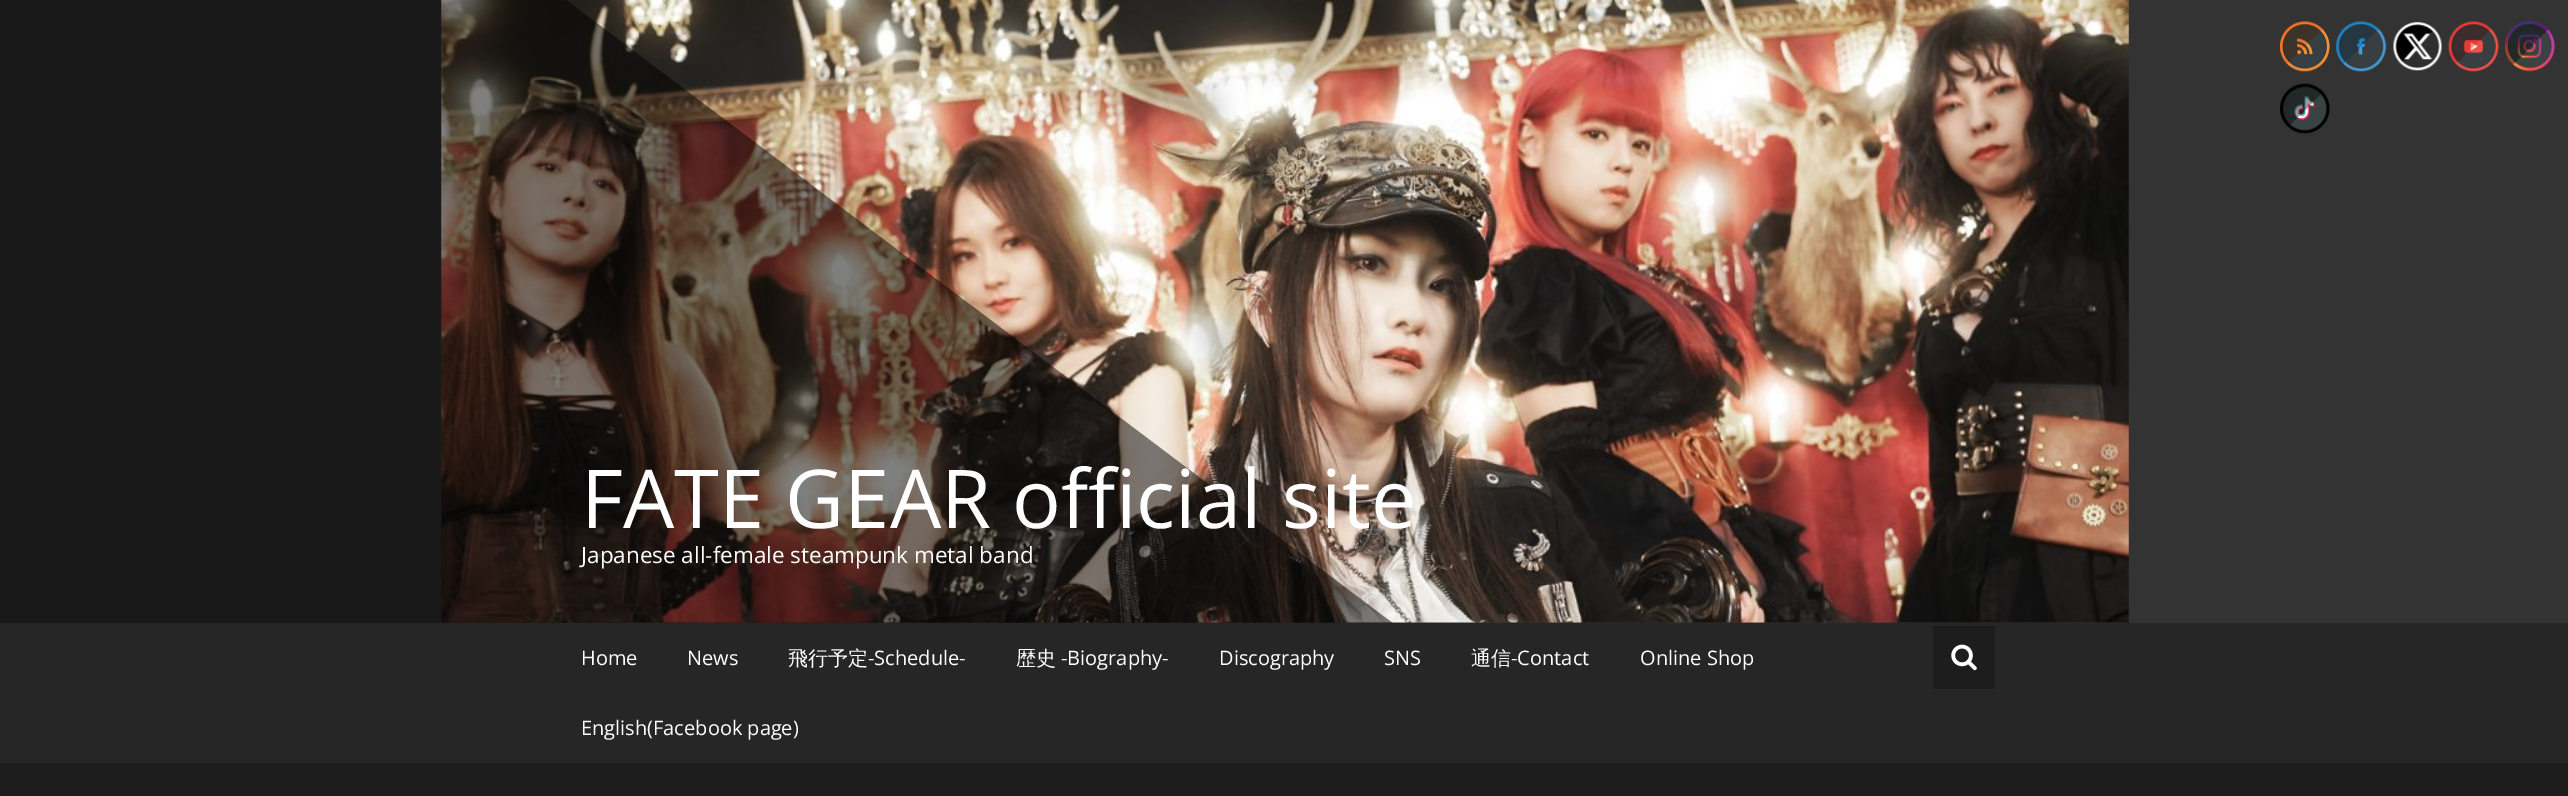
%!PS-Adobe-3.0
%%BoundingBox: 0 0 2568 796
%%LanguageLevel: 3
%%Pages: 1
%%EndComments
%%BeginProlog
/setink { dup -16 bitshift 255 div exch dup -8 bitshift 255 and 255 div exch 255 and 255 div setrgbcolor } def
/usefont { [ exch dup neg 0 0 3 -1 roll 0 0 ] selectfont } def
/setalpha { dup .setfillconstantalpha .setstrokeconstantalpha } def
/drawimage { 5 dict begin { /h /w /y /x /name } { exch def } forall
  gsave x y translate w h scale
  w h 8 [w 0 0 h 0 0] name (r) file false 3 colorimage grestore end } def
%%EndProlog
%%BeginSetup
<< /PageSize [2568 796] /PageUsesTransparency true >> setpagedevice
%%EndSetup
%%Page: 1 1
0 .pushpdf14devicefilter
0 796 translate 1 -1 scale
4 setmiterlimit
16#333333 setink
0 0 2568 796 rectfill
(img1.raw) 2280 21 50 51 drawimage
(img2.raw) 2336 21 51 51 drawimage
(img3.raw) 2393 22 49 49 drawimage
(img4.raw) 2448 21 51 51 drawimage
(img5.raw) 2505 21 50 51 drawimage
(img6.raw) 2280 83 50 51 drawimage
(img7.raw) 441 0 1688 623 drawimage
gsave
0 0 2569 623 rectclip
0.5 setalpha
16#000000 setink
-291 -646 moveto 1760 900 lineto 1008 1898 lineto -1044 352 lineto closepath fill
grestore
/OpenSans-Regular 81.25 usefont
16#FFFFFF setink
581 528 moveto (FATE GEAR official site) show
/OpenSans-Regular 22.5 usefont
581 563 moveto (Japanese all-female steampunk metal band) show
16#262626 setink
0 623 2568 140 rectfill
/OpenSans-Regular 20 usefont
16#FFFFFF setink
581 665 moveto (Home) show
687 665 moveto (News) show
/WenQuanYiZenHei-Medium 20 usefont
788 665 moveto (飛行予定) show
/OpenSans-Regular 20 usefont
868 665 moveto (-Schedule-) show
/WenQuanYiZenHei-Medium 20 usefont
1016 665 moveto (歴史) show
/OpenSans-Regular 20 usefont
[
    [(-Biography-) 1061 665]
    [(Discography) 1219 665]
    [(SNS) 1384 665]
] { aload pop moveto show } forall
/WenQuanYiZenHei-Medium 20 usefont
1471 665 moveto (通信) show
/OpenSans-Regular 20 usefont
[
    [(-Contact) 1511 665]
    [(Online Shop) 1640 665]
    [(English\(Facebook page\)) 581 735]
] { aload pop moveto show } forall
16#1D1D1D setink
1933 626 62 63 rectfill
(img8.raw) 1951 644 26 27 drawimage
0 763 2568 33 rectfill
.poppdf14devicefilter showpage
%%EOF
